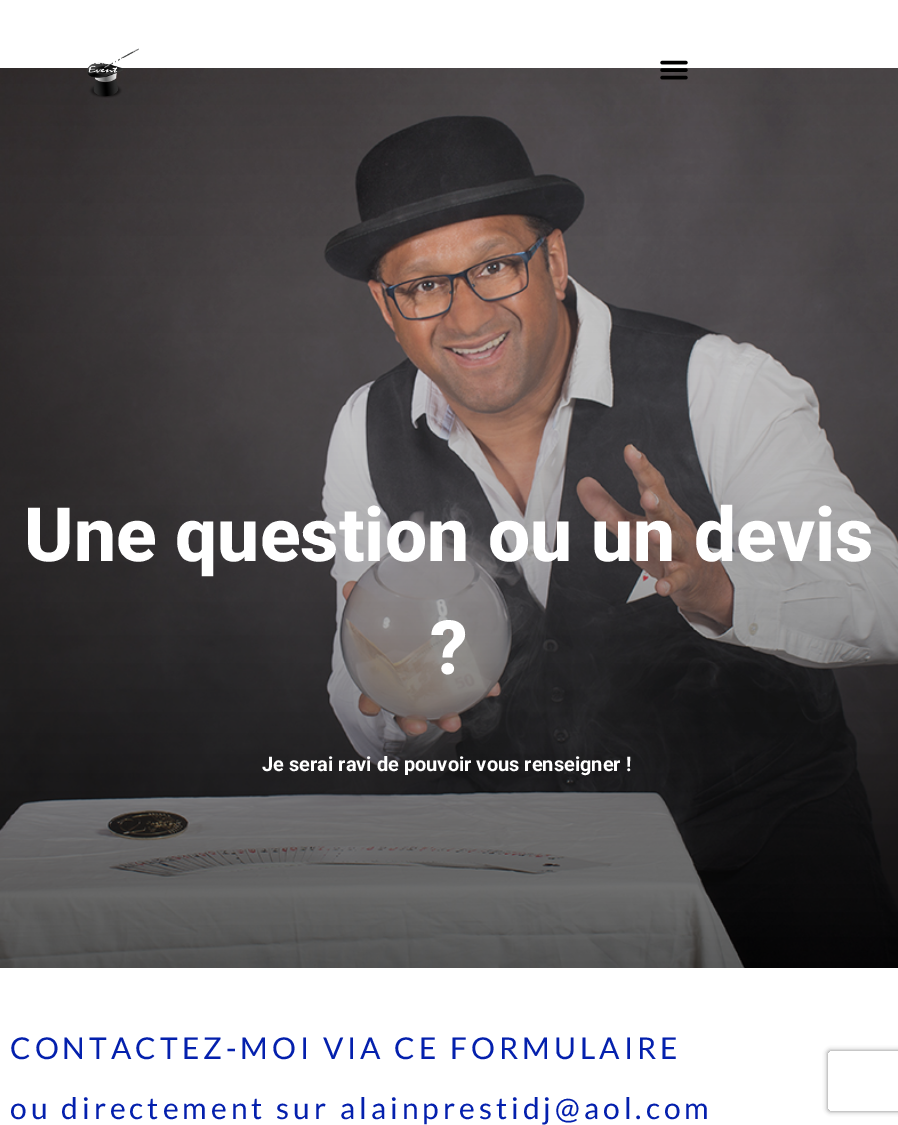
%!PS-Adobe-3.0
%%BoundingBox: 0 0 898 1125
%%LanguageLevel: 3
%%Pages: 1
%%EndComments
%%BeginProlog
/setink { dup -16 bitshift 255 div exch dup -8 bitshift 255 and 255 div exch 255 and 255 div setrgbcolor } def
/usefont { [ exch dup neg 0 0 3 -1 roll 0 0 ] selectfont } def
/setalpha { dup .setfillconstantalpha .setstrokeconstantalpha } def
/rrect { 5 dict begin { /r /h /w /y /x } { exch def } forall
  x r add y moveto x w add y 2 copy h add r arct x w add y h add x 1 index r arct
  x y h add x y r arct x y 2 copy exch w add exch r arct closepath end } def
/softshadow { 12 dict begin { /a /b /q /h /w /y /x } { exch def } forall gsave /was 0 def
  9 -2 -9 { dup b mul 4 div /e exch def 1 sub .425 mul 2.718 exch exp 1 add a .99 .min exch div /now exch def
    1 1 now sub 1 was sub div sub setalpha /was now def
    w h .min e 2 mul add 0 gt { x e sub y e sub w e 2 mul add h e 2 mul add
      q e add b .6 mul add w h .min 2 div e add .min 0 .max rrect fill } if } for grestore end } def
/drawimage { 5 dict begin { /h /w /y /x /name } { exch def } forall
  gsave x y translate w h scale
  w h 8 [w 0 0 h 0 0] name (r) file false 3 colorimage grestore end } def
%%EndProlog
%%BeginSetup
<< /PageSize [898 1125] /PageUsesTransparency true >> setpagedevice
%%EndSetup
%%Page: 1 1
0 .pushpdf14devicefilter
0 1125 translate 1 -1 scale
4 setmiterlimit
16#FFFFFF setink
0 0 898 1125 rectfill
(img3.raw) 0 68 898 900 drawimage
(img1.raw) 87 48 52 50 drawimage
(img2.raw) 660 60 28 20 drawimage
/Roboto-ExtraBold 75 usefont
24 561 moveto (Une question ou un devis) show
430 674 moveto (?) show
/Roboto-Bold 20 usefont
262 771 moveto (Je serai ravi de pouvoir vous renseigner !) show
/Lato-Regular 30 usefont
16#0420AD setink
10 1059 moveto 4 0 (CONTACTEZ-MOI VIA CE FORMULAIRE) ashow
10 1119 moveto 4 0 (ou directement sur alainprestidj@aol.com) ashow
gsave
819 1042 moveto 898 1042 lineto 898 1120 lineto 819 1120 lineto closepath 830 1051 moveto 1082 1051 lineto 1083 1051 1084 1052 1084 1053 curveto 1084 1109 lineto 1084 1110 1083 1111 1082 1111 curveto 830 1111 lineto 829 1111 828 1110 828 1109 curveto 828 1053 lineto 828 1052 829 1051 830 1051 curveto closepath eoclip newpath
16#808080 setink
828 1051 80 60 2 2.5 1 softshadow
grestore
.poppdf14devicefilter showpage
%%EOF
